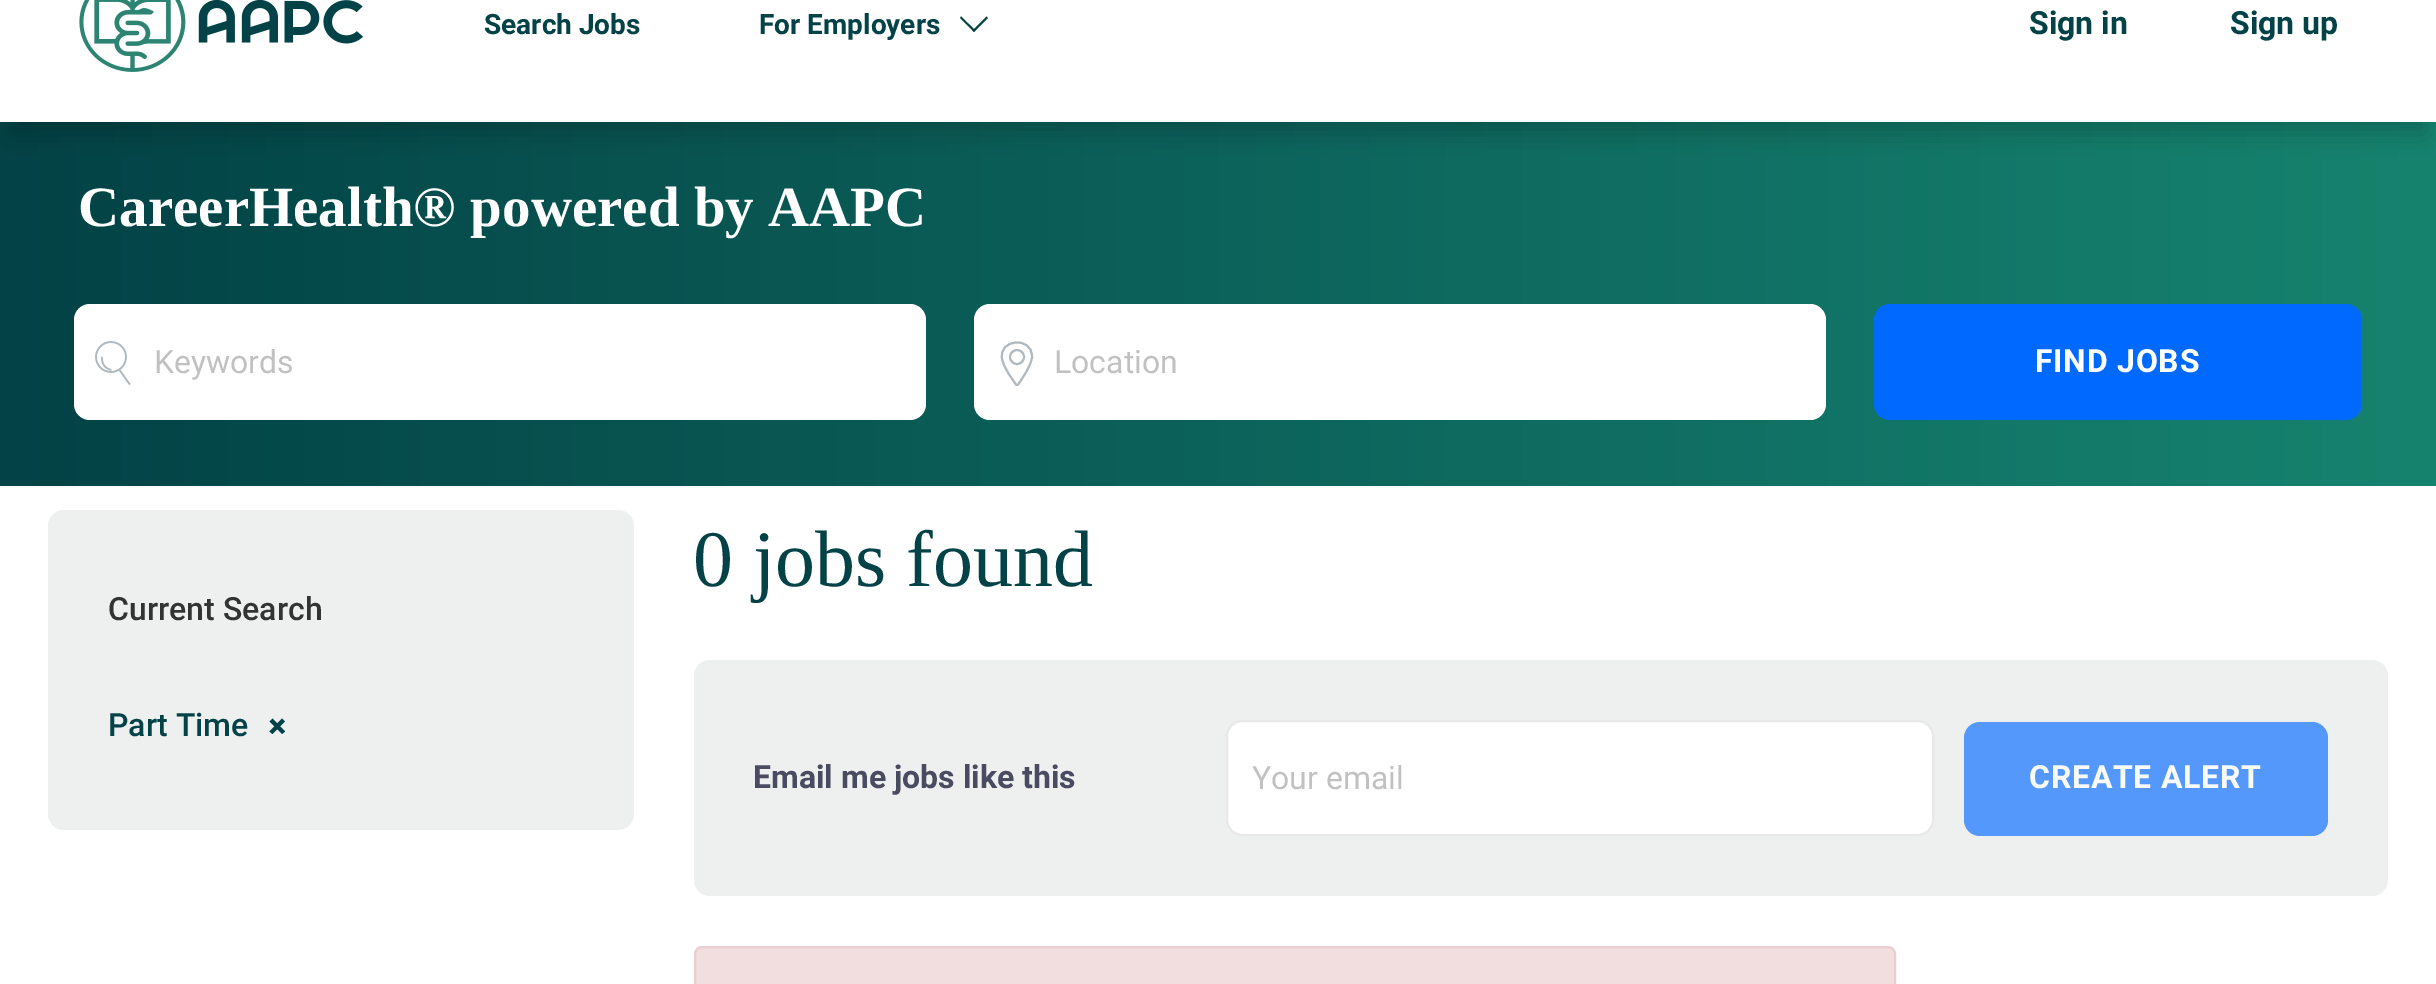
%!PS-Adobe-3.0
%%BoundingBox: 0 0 2436 984
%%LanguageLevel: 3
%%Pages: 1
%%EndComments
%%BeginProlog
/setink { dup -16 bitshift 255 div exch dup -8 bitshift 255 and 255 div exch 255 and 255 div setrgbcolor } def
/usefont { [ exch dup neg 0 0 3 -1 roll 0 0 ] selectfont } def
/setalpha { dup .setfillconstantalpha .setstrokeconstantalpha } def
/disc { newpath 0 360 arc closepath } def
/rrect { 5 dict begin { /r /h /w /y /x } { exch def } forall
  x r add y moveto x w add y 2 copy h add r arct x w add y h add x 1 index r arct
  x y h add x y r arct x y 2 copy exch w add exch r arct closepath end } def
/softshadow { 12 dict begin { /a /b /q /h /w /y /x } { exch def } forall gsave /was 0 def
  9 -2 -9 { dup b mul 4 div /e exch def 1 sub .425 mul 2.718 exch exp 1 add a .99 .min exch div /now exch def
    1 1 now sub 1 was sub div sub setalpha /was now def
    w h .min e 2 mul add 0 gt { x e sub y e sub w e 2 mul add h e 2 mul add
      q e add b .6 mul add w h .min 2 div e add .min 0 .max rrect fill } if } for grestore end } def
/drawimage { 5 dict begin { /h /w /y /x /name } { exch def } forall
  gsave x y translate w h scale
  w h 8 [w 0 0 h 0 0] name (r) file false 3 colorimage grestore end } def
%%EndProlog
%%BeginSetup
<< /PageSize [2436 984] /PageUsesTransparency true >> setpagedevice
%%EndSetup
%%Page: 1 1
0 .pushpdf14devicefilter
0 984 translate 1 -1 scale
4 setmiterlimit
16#FFFFFF setink
0 0 2436 984 rectfill
gsave 0 122 moveto 2436 122 lineto 2436 486 lineto 0 486 lineto closepath clip newpath
<< /ShadingType 2 /ColorSpace /DeviceRGB /Coords [0 252 2436 252] /Extend [true true] /Function << /FunctionType 2 /Domain [0 1] /C0 [0.012 0.259 0.275] /C1 [0.086 0.514 0.435] /N 1 >> >> shfill grestore
16#000000 setink
10 -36 2416 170 0 12 0.18 softshadow
16#FFFFFF setink
0 0 2436 122 rectfill
(img1.raw) 79 0 284 72 drawimage
/Roboto-Bold 28 usefont
16#034246 setink
484 34 moveto (Search Jobs) show
759 34 moveto (For Employers) show
988 18 moveto 974 32 lineto 972.5 30.5 lineto 986.5 16.5 lineto closepath fill
975.5 30.5 moveto 974 32 lineto 960 18 lineto 961 16.5 lineto closepath fill
/Roboto-Bold 32 usefont
2029 34 moveto (Sign in) show
2230 34 moveto (Sign up) show
/LiberationSerif-Bold 57 usefont
16#FFFFFF setink
78 226 moveto (CareerHealth® powered by AAPC) show
74 304 852 116 16 rrect fill
(img2.raw) 95 341 36 44 drawimage
/Roboto-Regular 32 usefont
16#C1C1C1 setink
154 373 moveto (Keywords) show
16#FFFFFF setink
974 304 852 116 16 rrect fill
gsave
1000 340 34 46 rectclip
16#AFB9BF setink
2 setlinewidth
1017 386 moveto 1022 379 1032 365 1032 356 curveto 1031.5 336 998.5 339 1002 358.5 curveto 1004 368.5 1011.5 378 1017 386 curveto closepath stroke
grestore
16#AFB9BF setink
2 setlinewidth
1017 357 7 disc stroke
16#C1C1C1 setink
1054 373 moveto (Location) show
16#0069FF setink
1874 304 488 116 16 rrect fill
/Roboto-Bold 32 usefont
16#FFFFFF setink
2035 372 moveto 0.75 0 (FIND JOBS) ashow
/LiberationSerif-Regular 80 usefont
16#034246 setink
693 586 moveto (0 jobs found) show
16#EEF0F0 setink
48 510 586 320 16 rrect fill
/Roboto-Medium 32 usefont
16#333333 setink
108 620 moveto (Current Search) show
16#034246 setink
108 736 moveto (Part Time) show
272.5 718.5 moveto 285 731.5 lineto 282 734 lineto 269.5 721.5 lineto closepath fill
285 721.5 moveto 272.5 734 lineto 269.5 731.5 lineto 282 718.5 lineto closepath fill
16#EEF0F0 setink
694 660 1694 236 16 rrect fill
/Roboto-Bold 32 usefont
16#494B60 setink
753 788 moveto (Email me jobs like this) show
16#FFFFFF setink
1227 721 706 114 15 rrect gsave fill grestore
16#E8E8E8 setink
stroke
/Roboto-Regular 32 usefont
16#C1C1C1 setink
1252 789 moveto (Your email) show
16#5398FA setink
1964 722 364 114 16 rrect fill
/Roboto-Bold 32 usefont
16#F9FAFA setink
2029 788 moveto 0.75 0 (CREATE ALERT) ashow
16#F2DEDE setink
695 947 1200 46 7 rrect gsave fill grestore
16#EBCCD1 setink
stroke
.poppdf14devicefilter showpage
%%EOF
